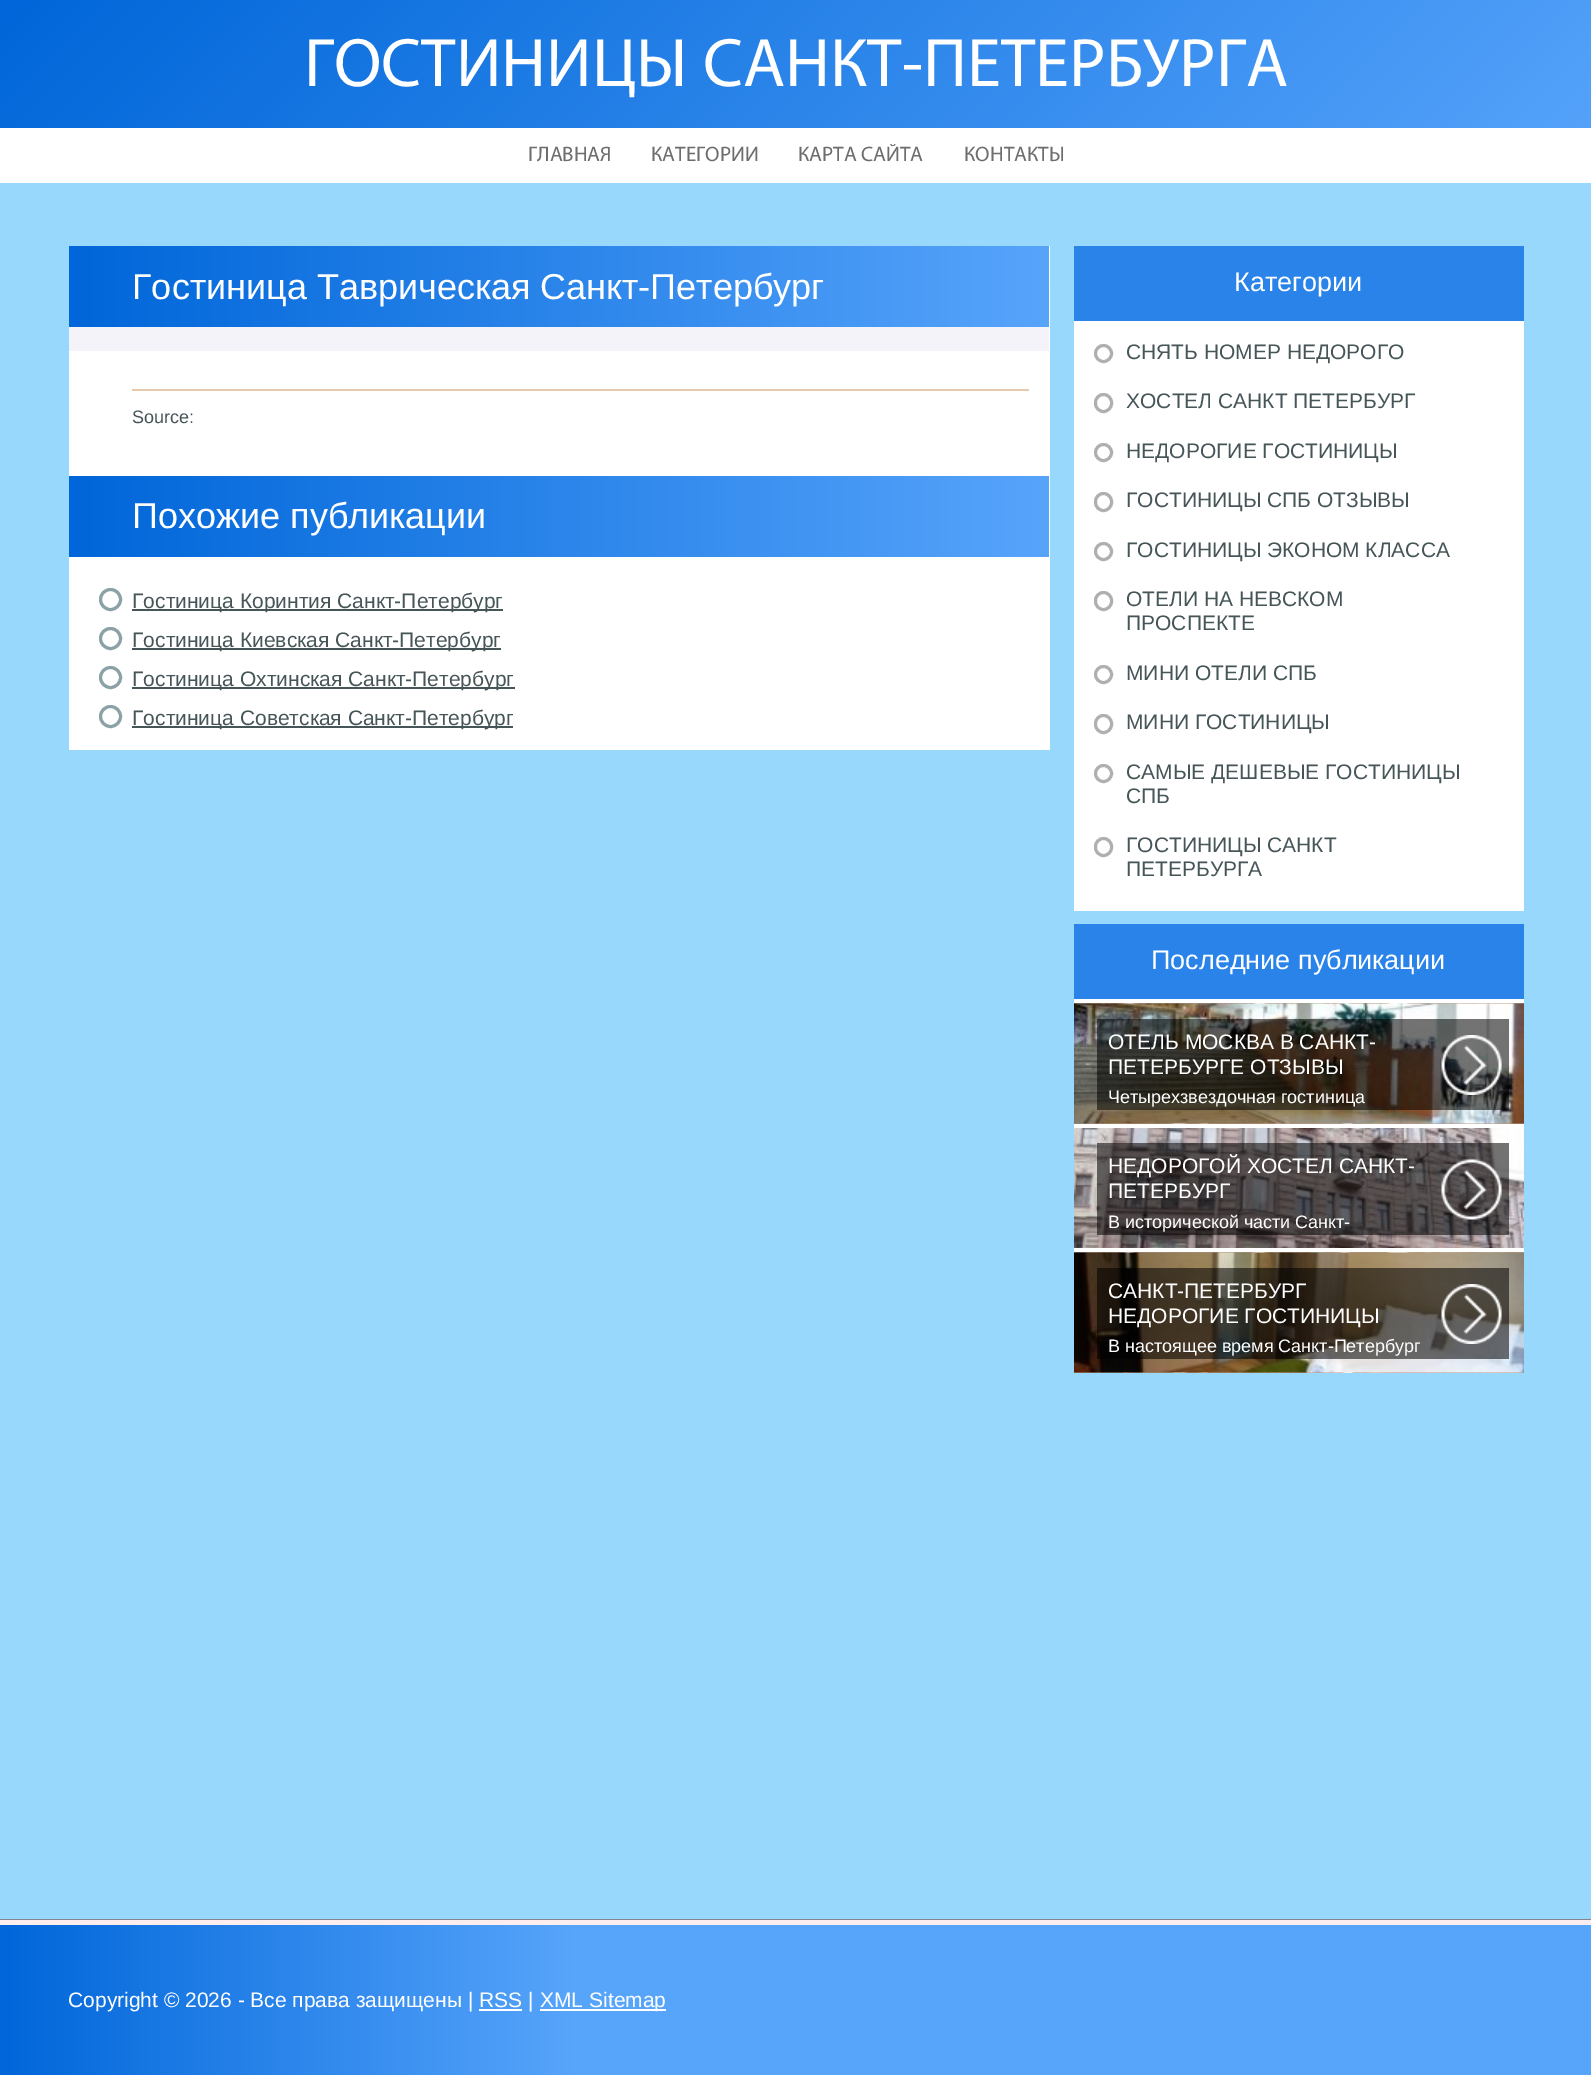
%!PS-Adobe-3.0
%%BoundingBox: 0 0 1591 2075
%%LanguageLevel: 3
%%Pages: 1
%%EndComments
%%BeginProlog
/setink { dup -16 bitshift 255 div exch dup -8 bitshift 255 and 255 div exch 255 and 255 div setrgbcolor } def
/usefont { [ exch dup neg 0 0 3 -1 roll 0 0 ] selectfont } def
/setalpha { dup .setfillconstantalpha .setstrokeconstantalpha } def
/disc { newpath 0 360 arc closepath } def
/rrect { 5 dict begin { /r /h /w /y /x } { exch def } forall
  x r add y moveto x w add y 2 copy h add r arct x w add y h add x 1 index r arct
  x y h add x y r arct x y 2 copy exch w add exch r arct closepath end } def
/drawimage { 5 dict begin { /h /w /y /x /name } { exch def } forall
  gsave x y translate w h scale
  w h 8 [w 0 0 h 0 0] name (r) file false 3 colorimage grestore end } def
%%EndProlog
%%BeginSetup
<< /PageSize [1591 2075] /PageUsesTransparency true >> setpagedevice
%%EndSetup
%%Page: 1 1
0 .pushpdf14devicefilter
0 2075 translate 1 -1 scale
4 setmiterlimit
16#99D8FD setink
0 0 1591 2075 rectfill
gsave 0 0 moveto 1591 0 lineto 1591 128 lineto 0 128 lineto closepath clip newpath
<< /ShadingType 2 /ColorSpace /DeviceRGB /Coords [352 -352 1239 535] /Extend [true true] /Function << /FunctionType 2 /Domain [0 1] /C0 [0 0.4 0.851] /C1 [0.341 0.643 0.984] /N 1 >> >> shfill grestore
/Myriad-Regular 69 usefont
16#FFFFFF setink
304 86 moveto (ГОСТИНИЦЫ САНКТ-ПЕТЕРБУРГА) show
0 128 1591 55 rectfill
/Myriad-Regular 21 usefont
16#6D6D6F setink
[
    [(ГЛАВНАЯ) 528 161]
    [(КАТЕГОРИИ) 651 161]
    [(КАРТА САЙТА) 798 161]
    [(КОНТАКТЫ) 964 161]
] { aload pop moveto show } forall
16#FFFFFF setink
69 246 981 504 rectfill
gsave 69 246 moveto 1049 246 lineto 1049 327 lineto 69 327 lineto closepath clip newpath
<< /ShadingType 2 /ColorSpace /DeviceRGB /Coords [69 287 1049 286] /Extend [true true] /Function << /FunctionType 2 /Domain [0 1] /C0 [0 0.4 0.851] /C1 [0.341 0.643 0.984] /N 1 >> >> shfill grestore
/LiberationSans-Regular 36 usefont
132 299 moveto (Гостиница Таврическая Санкт-Петербург) show
16#F3F3F9 setink
69 327 980 24 rectfill
16#E7C9AD setink
132 389 897 2 rectfill
/LiberationSans-Regular 18 usefont
16#465557 setink
132 423 moveto (Source:) show
gsave 69 476 moveto 1049 476 lineto 1049 557 lineto 69 557 lineto closepath clip newpath
<< /ShadingType 2 /ColorSpace /DeviceRGB /Coords [69 516 1049 516] /Extend [true true] /Function << /FunctionType 2 /Domain [0 1] /C0 [0 0.4 0.851] /C1 [0.341 0.643 0.984] /N 1 >> >> shfill grestore
/LiberationSans-Regular 36 usefont
16#FFFFFF setink
132 528 moveto (Похожие публикации) show
16#8AA2A5 setink
3 setlinewidth
110.5 599.5 10 disc stroke
16#465557 setink
132 609 371 2 rectfill
/LiberationSans-Regular 21 usefont
132 608 moveto (Гостиница Коринтия Санкт-Петербург) show
16#8AA2A5 setink
110.5 638.5 10 disc stroke
16#465557 setink
132 648 369 2 rectfill
132 647 moveto (Гостиница Киевская Санкт-Петербург) show
16#8AA2A5 setink
110.5 677.5 10 disc stroke
16#465557 setink
132 687 383 2 rectfill
132 686 moveto (Гостиница Охтинская Санкт-Петербург) show
16#8AA2A5 setink
110.5 716.5 10 disc stroke
16#465557 setink
132 726 381 2 rectfill
132 725 moveto (Гостиница Советская Санкт-Петербург) show
16#FFFFFF setink
1074 321 450 590 rectfill
16#2983E9 setink
1074 246 450 75 rectfill
/LiberationSans-Regular 27 usefont
16#FFFFFF setink
1234 291 moveto (Категории) show
16#AFAFAF setink
1103.5 353.5 8 disc stroke
/LiberationSans-Regular 21 usefont
16#465557 setink
1126 359 moveto (СНЯТЬ НОМЕР НЕДОРОГО) show
16#AFAFAF setink
1095.5 394.5 16 17 8 rrect stroke
16#465557 setink
1126 408 moveto (ХОСТЕЛ САНКТ ПЕТЕРБУРГ) show
16#AFAFAF setink
1103.5 452.5 8 disc stroke
16#465557 setink
1126 458 moveto (НЕДОРОГИЕ ГОСТИНИЦЫ) show
16#AFAFAF setink
1095.5 493.5 16 17 8 rrect stroke
16#465557 setink
1126 507 moveto (ГОСТИНИЦЫ СПБ ОТЗЫВЫ) show
16#AFAFAF setink
1103.5 551.5 8 disc stroke
16#465557 setink
1126 557 moveto (ГОСТИНИЦЫ ЭКОНОМ КЛАССА) show
16#AFAFAF setink
1095.5 592.5 16 17 8 rrect stroke
16#465557 setink
1126 606 moveto (ОТЕЛИ НА НЕВСКОМ) show
1126 630 moveto (ПРОСПЕКТЕ) show
16#AFAFAF setink
1103.5 674.5 8 disc stroke
16#465557 setink
1126 680 moveto (МИНИ ОТЕЛИ СПБ) show
16#AFAFAF setink
1095.5 715.5 16 17 8 rrect stroke
16#465557 setink
1126 729 moveto (МИНИ ГОСТИНИЦЫ) show
16#AFAFAF setink
1103.5 773.5 8 disc stroke
16#465557 setink
1126 779 moveto (САМЫЕ ДЕШЕВЫЕ ГОСТИНИЦЫ) show
1126 803 moveto (СПБ) show
16#AFAFAF setink
1095.5 838.5 16 17 8 rrect stroke
16#465557 setink
1126 852 moveto (ГОСТИНИЦЫ САНКТ) show
1126 876 moveto (ПЕТЕРБУРГА) show
16#FFFFFF setink
1074 999 450 374 rectfill
16#2983E9 setink
1074 924 450 75 rectfill
/LiberationSans-Regular 27 usefont
16#FFFFFF setink
1151 969 moveto (Последние публикации) show
(img1.raw) 1074 1003 450 121 drawimage
(img2.raw) 1074 1003 450 121 drawimage
0.55 setalpha
16#000000 setink
1097 1019 412 91 rectfill
1 setalpha
(img3.raw) 1441 1035 61 60 drawimage
/LiberationSans-Regular 21 usefont
16#FFFFFF setink
1108 1049 moveto (ОТЕЛЬ МОСКВА В САНКТ-) show
1108 1074 moveto (ПЕТЕРБУРГЕ ОТЗЫВЫ) show
/LiberationSans-Regular 18 usefont
1108 1103 moveto (Четырехзвездочная гостиница) show
(img4.raw) 1074 1128 450 120 drawimage
0.55 setalpha
16#000000 setink
1097 1143 412 92 rectfill
1 setalpha
(img5.raw) 1441 1159 61 61 drawimage
/LiberationSans-Regular 21 usefont
16#FFFFFF setink
1108 1173 moveto (НЕДОРОГОЙ ХОСТЕЛ САНКТ-) show
1108 1198 moveto (ПЕТЕРБУРГ) show
/LiberationSans-Regular 18 usefont
1108 1228 moveto (В исторической части Санкт-) show
(img1.raw) 1074 1252 450 121 drawimage
(img6.raw) 1074 1252 450 121 drawimage
0.55 setalpha
16#000000 setink
1097 1268 412 91 rectfill
1 setalpha
(img7.raw) 1441 1284 61 60 drawimage
/LiberationSans-Regular 21 usefont
16#FFFFFF setink
1108 1298 moveto (САНКТ-ПЕТЕРБУРГ) show
1108 1323 moveto (НЕДОРОГИЕ ГОСТИНИЦЫ) show
/LiberationSans-Regular 18 usefont
1108 1352 moveto (В настоящее время Санкт-Петербург) show
gsave 0 1925 moveto 1591 1925 lineto 1591 2075 lineto 0 2075 lineto closepath clip newpath
<< /ShadingType 2 /ColorSpace /DeviceRGB /Coords [0 1998 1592 1998] /Extend [true true] /Function << /FunctionType 3 /Domain [0 1] /Functions [<< /FunctionType 2 /Domain [0 1] /C0 [0 0.4 0.851] /C1 [0.341 0.643 0.984] /N 1 >> << /FunctionType 2 /Domain [0 1] /C0 [0.341 0.643 0.984] /C1 [0.341 0.643 0.984] /N 1 >>] /Bounds [0.36] /Encode [0 1 0 1] >> >> shfill grestore
16#85858D setink
0 1919 1591 1 rectfill
16#FCEEEE setink
0 1920 1591 5 rectfill
/LiberationSans-Regular 21 usefont
16#FFFFFF setink
68 2007 moveto (Copyright © 2026 - Все права защищены | RSS |) show
540 2009 126 2 rectfill
540 2007 moveto (XML Sitemap) show
479 2009 43 2 rectfill
.poppdf14devicefilter showpage
%%EOF
